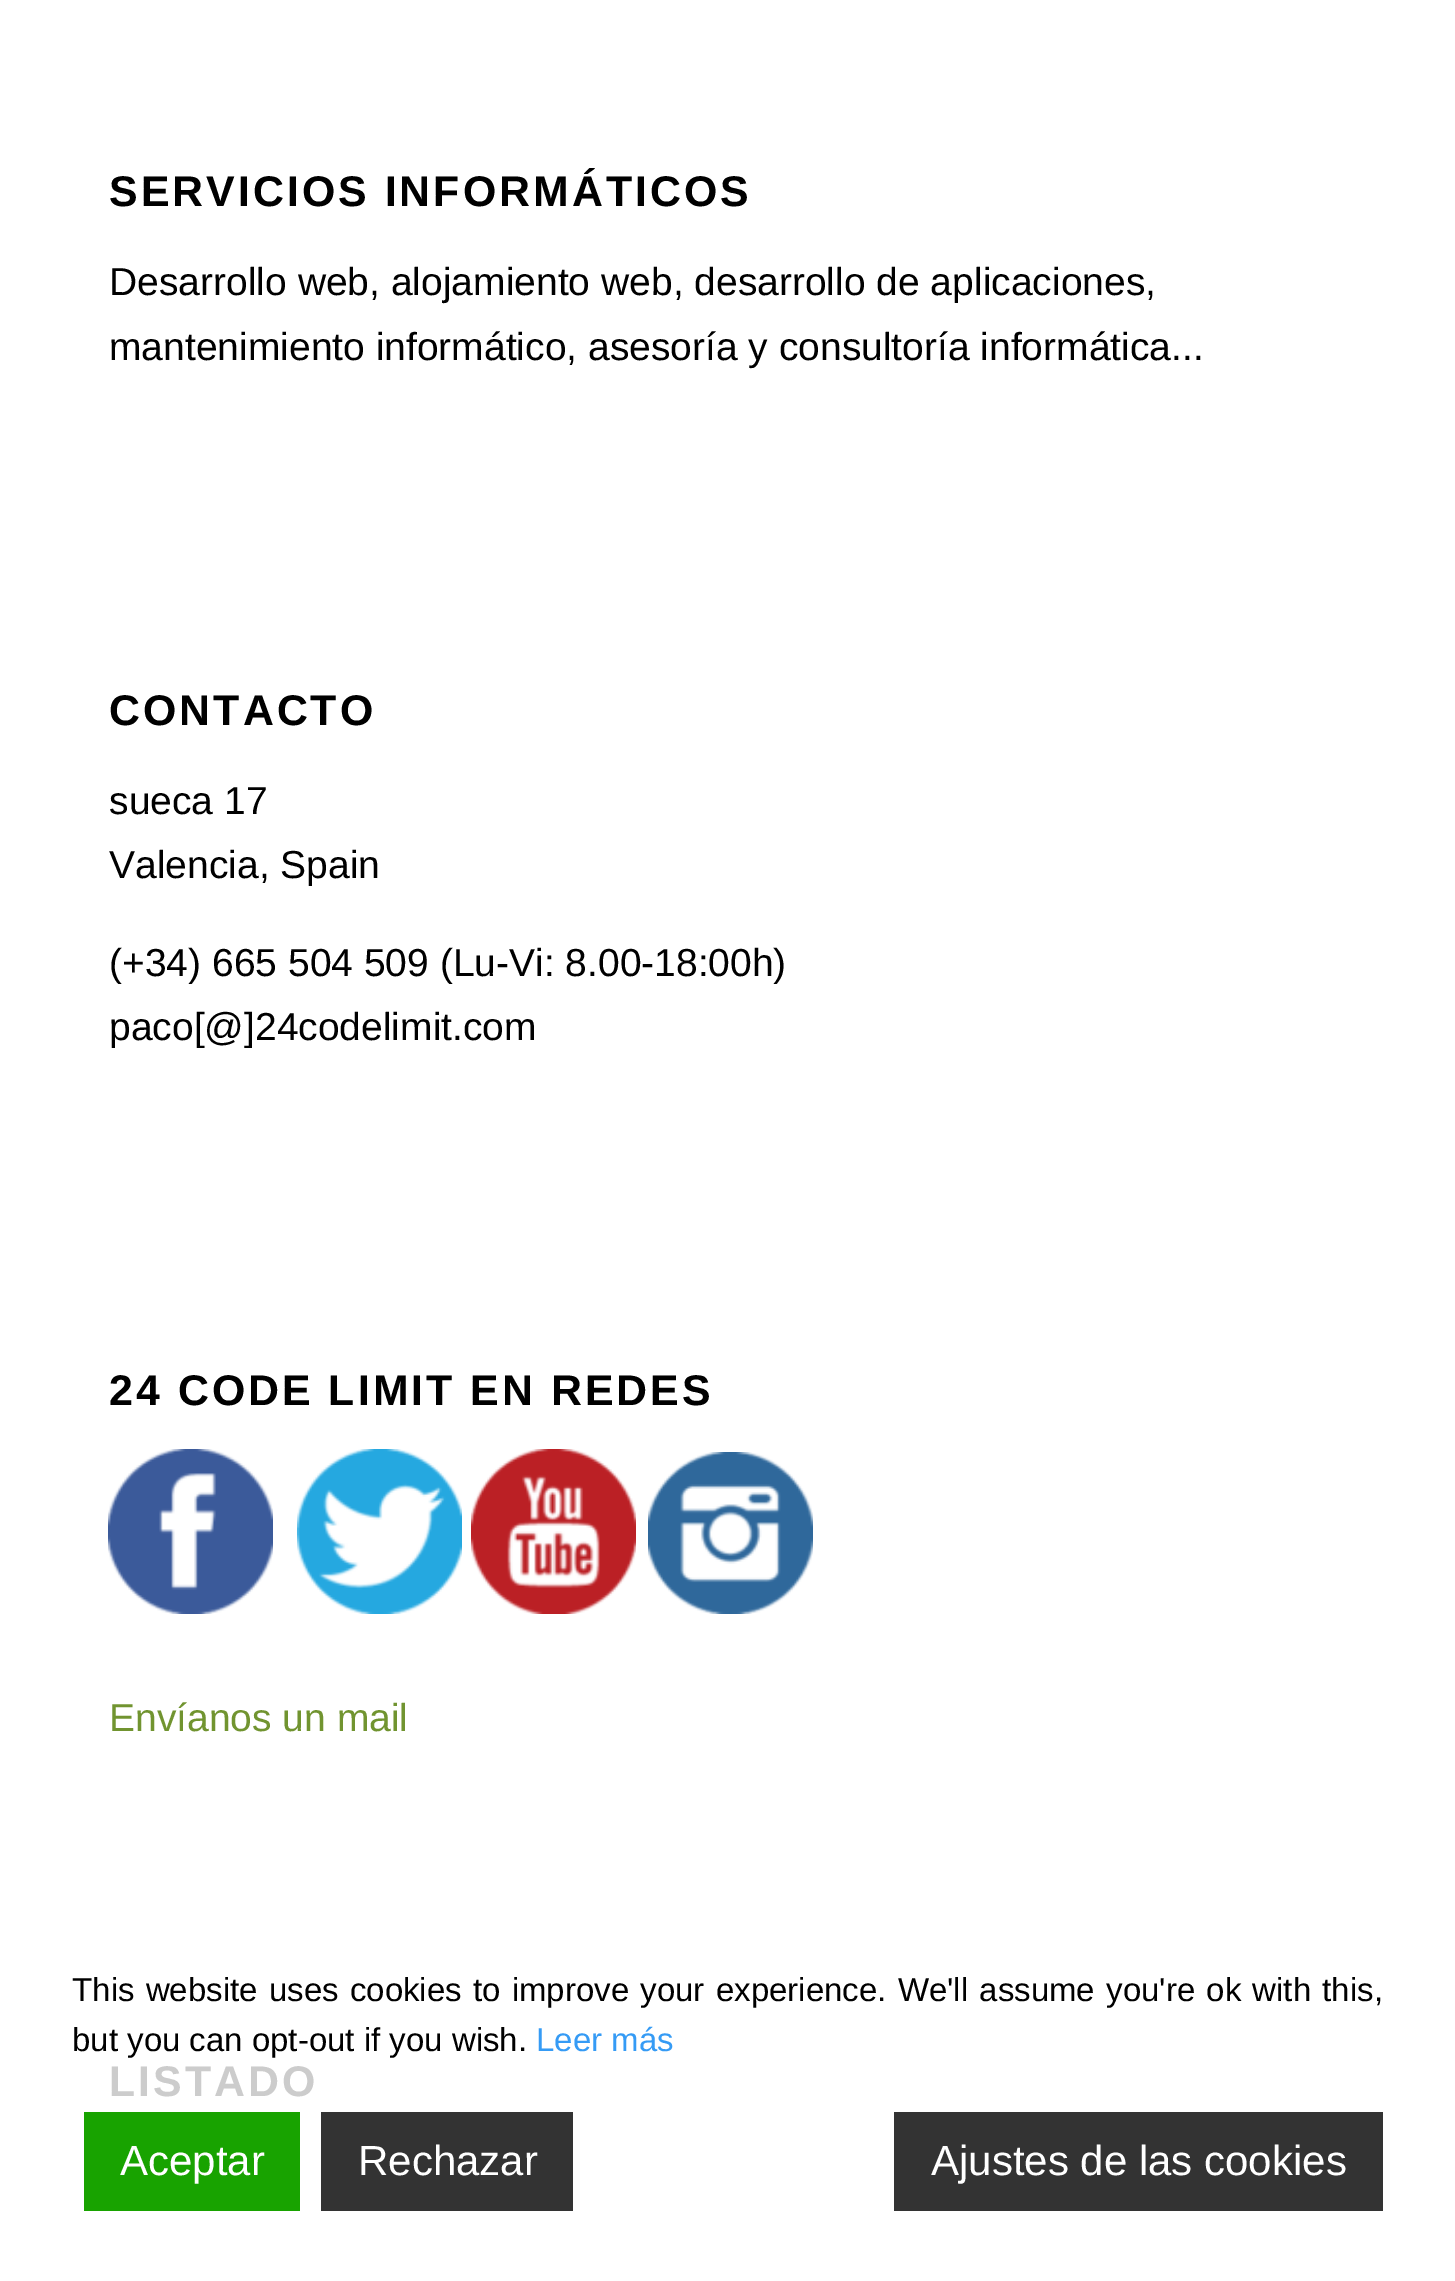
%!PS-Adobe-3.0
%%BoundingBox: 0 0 1455 2281
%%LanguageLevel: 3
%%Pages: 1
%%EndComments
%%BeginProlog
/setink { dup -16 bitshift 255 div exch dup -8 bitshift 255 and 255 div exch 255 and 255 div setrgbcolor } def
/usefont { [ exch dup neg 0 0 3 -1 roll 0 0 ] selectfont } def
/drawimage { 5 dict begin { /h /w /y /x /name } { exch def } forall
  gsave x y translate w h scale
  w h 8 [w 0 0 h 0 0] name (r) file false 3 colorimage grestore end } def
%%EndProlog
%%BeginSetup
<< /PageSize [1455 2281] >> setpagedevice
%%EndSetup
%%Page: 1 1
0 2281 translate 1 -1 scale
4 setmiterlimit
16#FFFFFF setink
0 0 1455 2281 rectfill
/LiberationSans-Bold 42.9 usefont
16#000000 setink
109 206 moveto 3 0 (SERVICIOS INFORMÁTICOS) ashow
/LiberationSans-Regular 39 usefont
109 295 moveto (Desarrollo web, alojamiento web, desarrollo de aplicaciones,) show
109 360 moveto (mantenimiento informático, asesoría y consultoría informática...) show
/LiberationSans-Bold 42.9 usefont
109 725 moveto 3 0 (CONTACTO) ashow
/LiberationSans-Regular 39 usefont
[
    [(sueca 17) 109 814]
    [(Valencia, Spain) 109 878]
    [(\(+34\) 665 504 509 \(Lu-Vi: 8.00-18:00h\)) 109 976]
    [(paco[@]24codelimit.com) 109 1040]
] { aload pop moveto show } forall
/LiberationSans-Bold 42.9 usefont
109 1405 moveto 3 0 (24 CODE LIMIT EN REDES) ashow
(img1.raw) 108 1449 165 165 drawimage
(img2.raw) 297 1449 165 165 drawimage
(img3.raw) 471 1449 165 165 drawimage
(img4.raw) 648 1452 165 162 drawimage
/LiberationSans-Regular 39 usefont
16#719430 setink
109 1731 moveto (Envíanos un mail) show
/LiberationSans-Bold 42.9 usefont
16#CCCCCC setink
109 2096 moveto 3 0 (LISTADO) ashow
/LiberationSans-Regular 33 usefont
16#000000 setink
72 2001 moveto 2.1 0 32 (This website uses cookies to improve your experience. We'll assume you're ok with this,) widthshow
72 2051 moveto (but you can opt-out if you wish.) show
16#359BF5 setink
536 2051 moveto (Leer más) show
16#18A300 setink
84 2112 216 99 rectfill
/LiberationSans-Regular 42 usefont
16#FFFFFF setink
120 2175 moveto (Aceptar) show
16#333333 setink
321 2112 252 99 rectfill
16#FFFFFF setink
358 2175 moveto (Rechazar) show
16#333333 setink
894 2112 489 99 rectfill
16#FFFFFF setink
931 2175 moveto (Ajustes de las cookies) show
showpage
%%EOF
